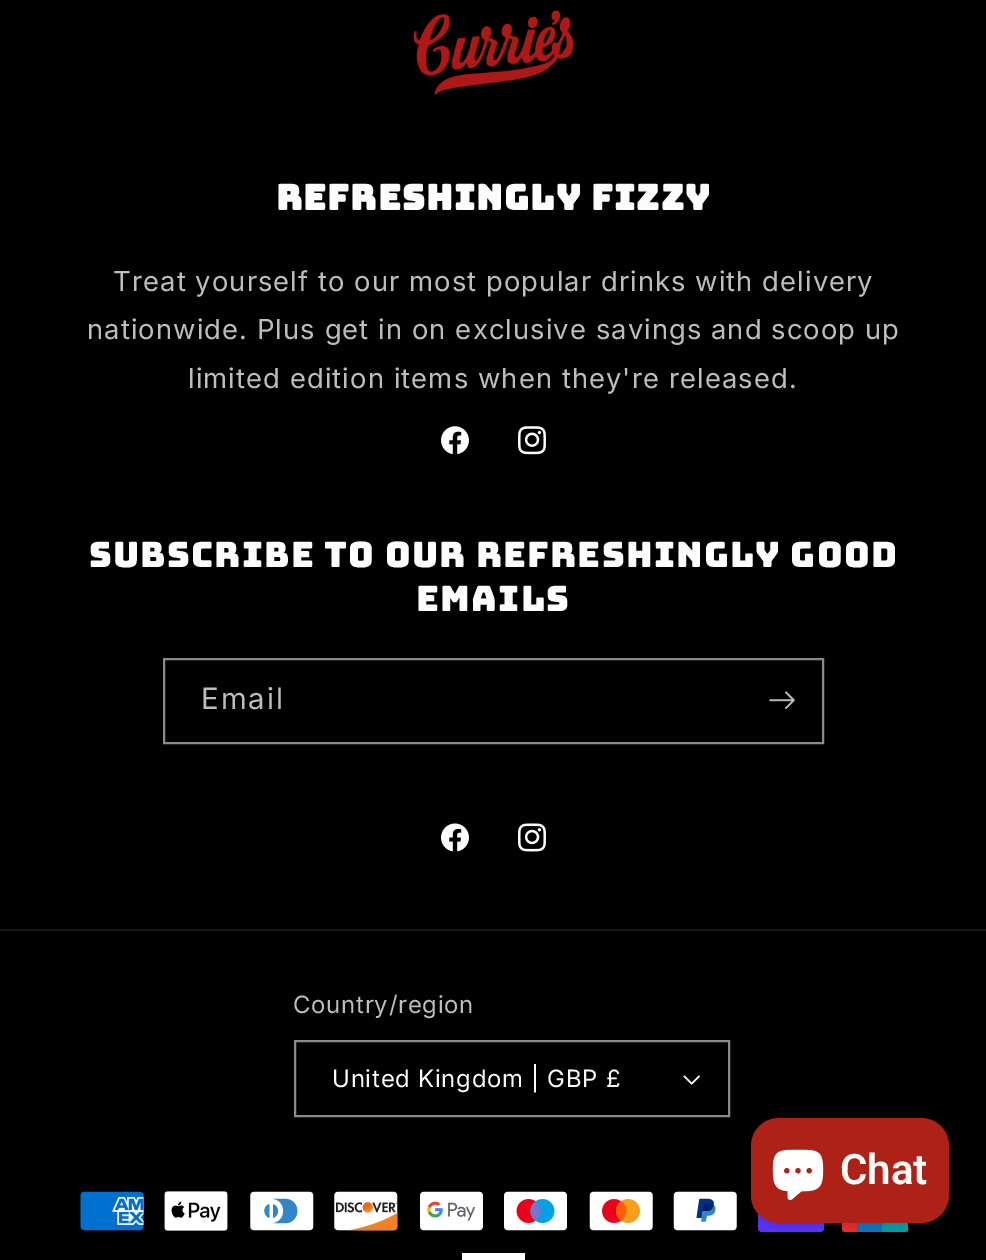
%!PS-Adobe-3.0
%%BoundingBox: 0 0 986 1260
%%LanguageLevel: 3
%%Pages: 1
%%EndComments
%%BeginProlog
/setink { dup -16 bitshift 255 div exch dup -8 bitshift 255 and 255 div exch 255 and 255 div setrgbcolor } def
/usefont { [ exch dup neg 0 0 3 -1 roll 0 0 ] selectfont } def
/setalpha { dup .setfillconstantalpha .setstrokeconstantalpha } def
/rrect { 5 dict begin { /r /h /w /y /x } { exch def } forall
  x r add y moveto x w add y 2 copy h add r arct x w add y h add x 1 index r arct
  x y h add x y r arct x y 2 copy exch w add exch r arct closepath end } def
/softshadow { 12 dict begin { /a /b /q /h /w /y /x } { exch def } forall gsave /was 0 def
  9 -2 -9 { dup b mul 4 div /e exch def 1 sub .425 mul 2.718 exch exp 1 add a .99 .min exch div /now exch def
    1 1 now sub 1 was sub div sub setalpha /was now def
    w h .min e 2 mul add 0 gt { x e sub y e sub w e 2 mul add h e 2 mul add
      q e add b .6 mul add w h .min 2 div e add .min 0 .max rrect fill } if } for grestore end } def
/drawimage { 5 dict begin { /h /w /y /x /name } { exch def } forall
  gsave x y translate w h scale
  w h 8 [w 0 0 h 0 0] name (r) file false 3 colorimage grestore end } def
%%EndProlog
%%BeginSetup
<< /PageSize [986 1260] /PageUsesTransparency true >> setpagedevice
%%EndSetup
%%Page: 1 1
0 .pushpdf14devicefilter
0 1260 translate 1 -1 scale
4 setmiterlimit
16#000000 setink
0 0 986 1260 rectfill
(img1.raw) 413 10 161 85 drawimage
/Bungee-Bold 35 usefont
16#FCFCFC setink
276 210 moveto 1.3 0 (Refreshingly Fizzy) ashow
/Inter-Regular 27.55 usefont
16#BDBDBD setink
113 291 moveto 1.1 0 (Treat yourself to our most popular drinks with delivery) ashow
87 339 moveto 1.1 0 (nationwide. Plus get in on exclusive savings and scoop up) ashow
188 388 moveto 1.1 0 (limited edition items when they're released.) ashow
(img2.raw) 441 426 28 29 drawimage
(img3.raw) 518 426 28 29 drawimage
/Bungee-Regular 35 usefont
16#FCFCFC setink
89 567 moveto 1.3 0 (Subscribe to our refreshingly good) ashow
416 611 moveto 1.3 0 (emails) ashow
16#8B8B8B setink
2 setlinewidth
164 659 659 84 rectstroke
/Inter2-Regular 29.5 usefont
16#BDBDBD setink
201 709 moveto 2 0 (Email) ashow
(img4.raw) 769 691 26 18 drawimage
(img5.raw) 441 823 28 29 drawimage
(img6.raw) 518 823 28 29 drawimage
16#141414 setink
0 929 986 2 rectfill
/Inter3-Regular 23.9 usefont
16#BDBDBD setink
293 1013 moveto 0.75 0 (Country/region) ashow
(img7.raw) 683 1075 17 10 drawimage
16#8B8B8B setink
295 1041 434 75 rectstroke
16#FCFCFC setink
332 1087 moveto 0.75 0 (United Kingdom | GBP £) ashow
(img8.raw) 80 1191 64 40 drawimage
(img9.raw) 164 1191 64 40 drawimage
(img10.raw) 250 1191 64 40 drawimage
(img11.raw) 334 1191 64 40 drawimage
(img12.raw) 420 1191 63 40 drawimage
(img13.raw) 504 1191 63 40 drawimage
(img14.raw) 589 1191 64 40 drawimage
(img15.raw) 673 1191 64 40 drawimage
(img16.raw) 758 1213 66 19 drawimage
(img17.raw) 842 1223 66 9 drawimage
16#FFFFFF setink
462 1253 63 7 rectfill
16#000000 setink
751 1118 198 105 28 4.5 0.15 softshadow
16#AD2117 setink
751 1118 198 105 28 rrect fill
(img18.raw) 772 1149 52 52 drawimage
/Roboto-SemiBold 42 usefont
16#FCFCFC setink
840 1184 moveto (Chat) show
.poppdf14devicefilter showpage
%%EOF
